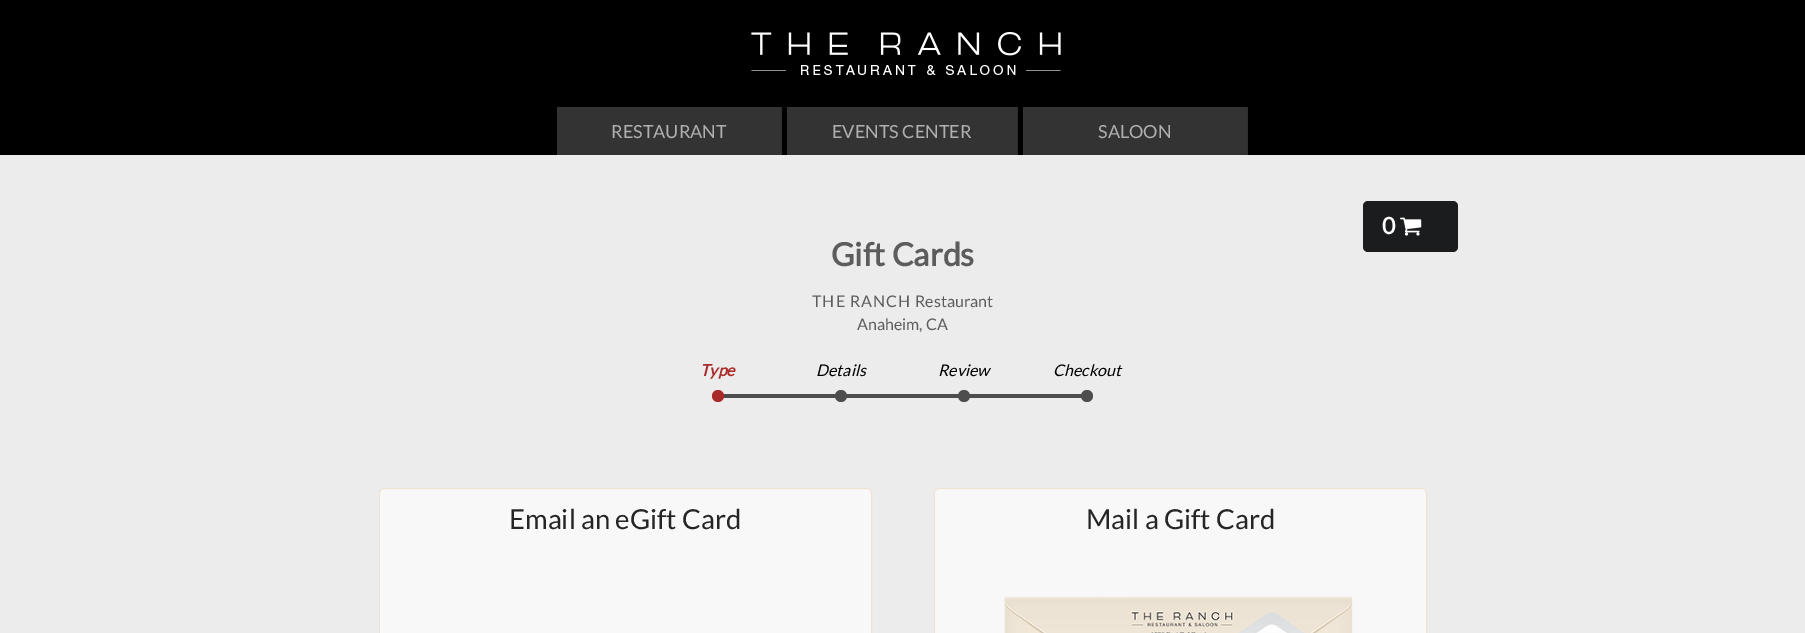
%!PS-Adobe-3.0
%%BoundingBox: 0 0 1805 633
%%LanguageLevel: 3
%%Pages: 1
%%EndComments
%%BeginProlog
/setink { dup -16 bitshift 255 div exch dup -8 bitshift 255 and 255 div exch 255 and 255 div setrgbcolor } def
/usefont { [ exch dup neg 0 0 3 -1 roll 0 0 ] selectfont } def
/setalpha { dup .setfillconstantalpha .setstrokeconstantalpha } def
/disc { newpath 0 360 arc closepath } def
/rrect { 5 dict begin { /r /h /w /y /x } { exch def } forall
  x r add y moveto x w add y 2 copy h add r arct x w add y h add x 1 index r arct
  x y h add x y r arct x y 2 copy exch w add exch r arct closepath end } def
/drawimage { 5 dict begin { /h /w /y /x /name } { exch def } forall
  gsave x y translate w h scale
  w h 8 [w 0 0 h 0 0] name (r) file false 3 colorimage grestore end } def
%%EndProlog
%%BeginSetup
<< /PageSize [1805 633] /PageUsesTransparency true >> setpagedevice
%%EndSetup
%%Page: 1 1
0 .pushpdf14devicefilter
0 633 translate 1 -1 scale
4 setmiterlimit
16#000000 setink
0 0 1805 633 rectfill
(img1.raw) 751 32 310 43 drawimage
16#333333 setink
557 107 224 48 rectfill
16#2E2E2E setink
781 107 1 48 rectfill
/Lato-Regular 18 usefont
16#B0B0B0 setink
611 138 moveto (RESTAURANT) show
16#333333 setink
787 107 230 48 rectfill
16#2E2E2E setink
1017 107 1 48 rectfill
16#B0B0B0 setink
832 138 moveto (EVENTS CENTER) show
16#333333 setink
1023 107 224 48 rectfill
16#2E2E2E setink
1247 107 1 48 rectfill
16#B0B0B0 setink
1098 138 moveto (SALOON) show
16#EDECEC setink
0 155 1805 478 rectfill
16#1B1C1D setink
1363 201 95 51 5 rrect fill
/Lato-Bold 23 usefont
16#FFFFFF setink
1382 234 moveto (0) show
(img2.raw) 1400 217 22 19 drawimage
/Lato-Bold 32 usefont
16#5C5C5C setink
831 266 moveto (Gift Cards) show
/Lato-Regular 16 usefont
812 307 moveto 1 0 (THE RANCH) ashow
915 307 moveto (Restaurant) show
857 330 moveto (Anaheim, CA) show
/Lato-BoldItalic 16 usefont
16#AA2A2A setink
700 376 moveto (Type) show
16#4D4D4D setink
718 394 120 4 rectfill
16#AA2A2A setink
718 396 6 disc fill
/Lato-Italic 16 usefont
16#000000 setink
816 376 moveto (Details) show
16#4D4D4D setink
841 394 120 4 rectfill
841 396 6 disc fill
16#000000 setink
938 376 moveto (Review) show
16#4D4D4D setink
964 394 120 4 rectfill
964 396 6 disc fill
16#000000 setink
1053 376 moveto (Checkout) show
16#4D4D4D setink
1087 396 6 disc fill
16#EFE2CF setink
379.5 488.5 492 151 5.5 rrect stroke
0.65 setalpha
16#FFFFFF setink
380 489 491 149 5 rrect fill
/Lato-Regular 27.5 usefont
1 setalpha
16#252525 setink
509 529 moveto (Email an eGift Card) show
16#EFE2CF setink
934.5 488.5 492 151 5.5 rrect stroke
0.65 setalpha
16#FFFFFF setink
935 489 491 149 5 rrect fill
1 setalpha
16#252525 setink
1086 529 moveto (Mail a Gift Card) show
(img3.raw) 1004 596 349 37 drawimage
.poppdf14devicefilter showpage
%%EOF
